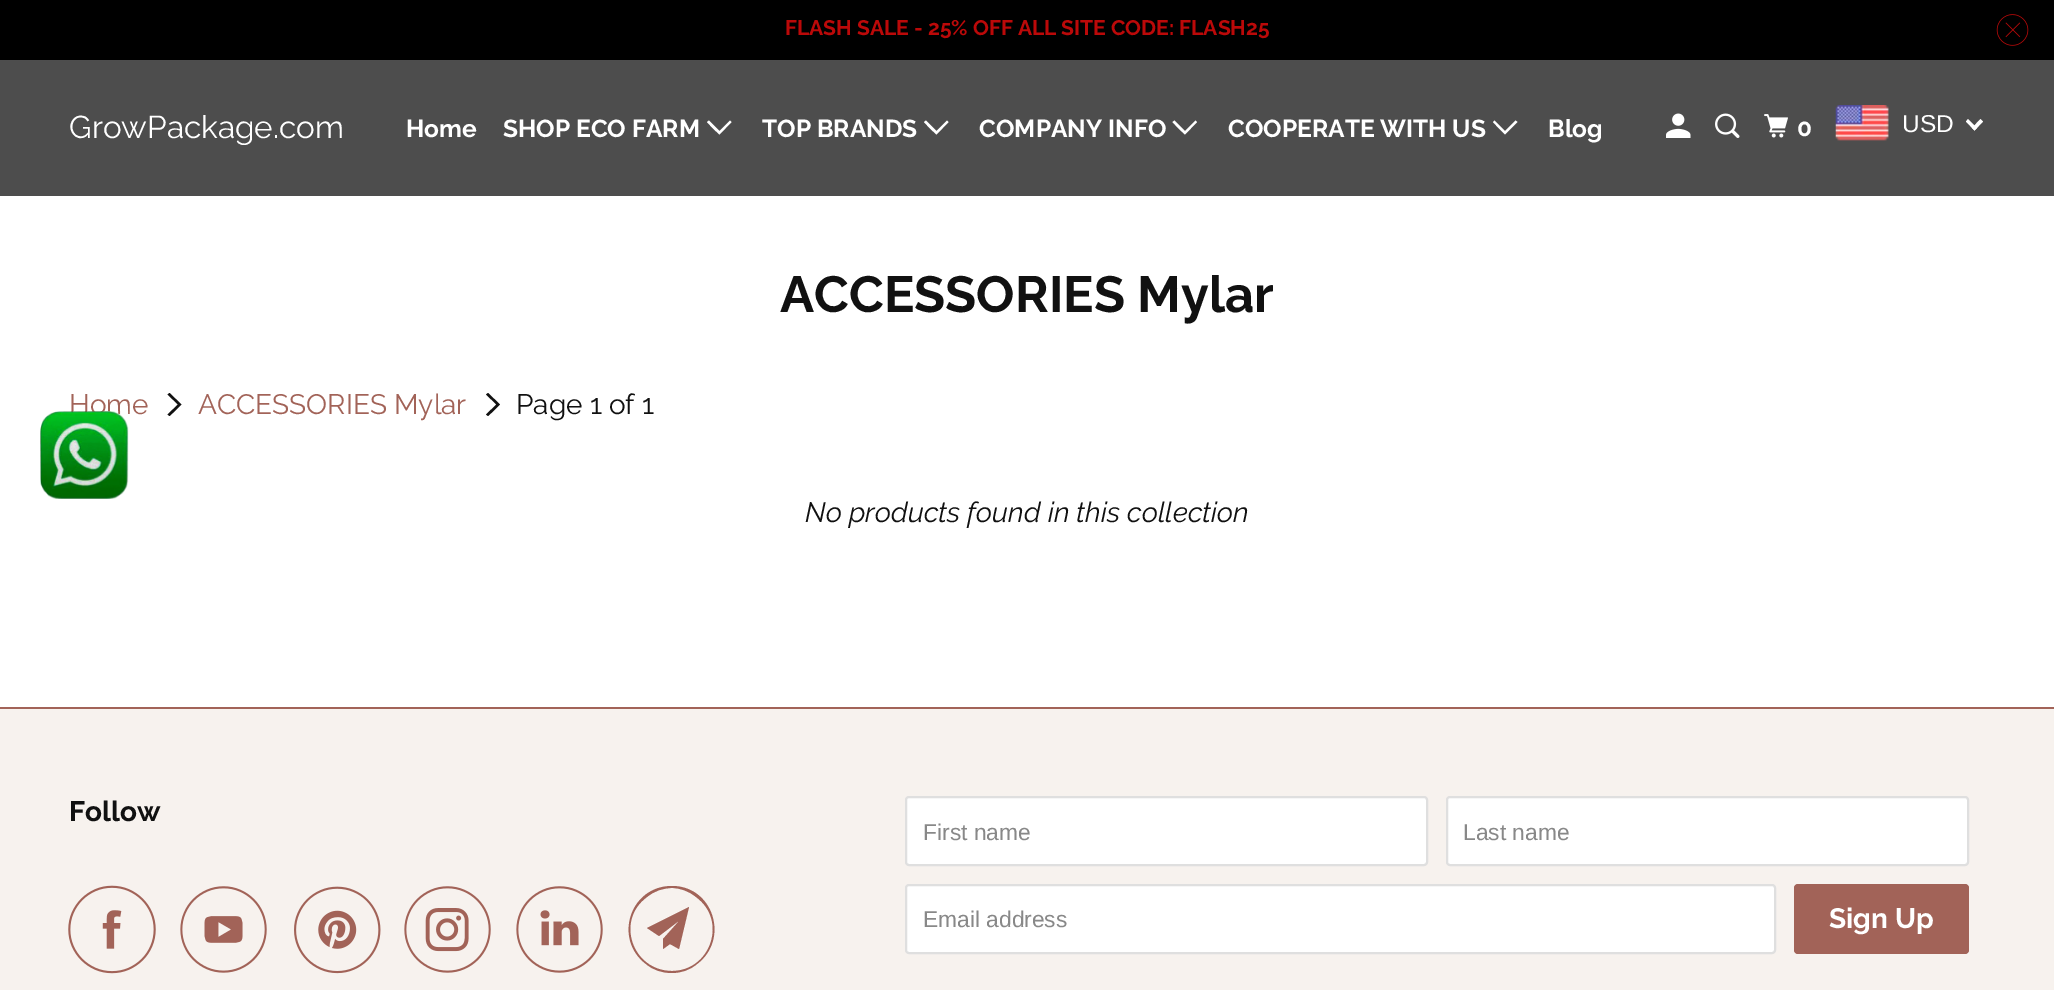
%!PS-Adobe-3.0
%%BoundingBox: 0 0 2054 990
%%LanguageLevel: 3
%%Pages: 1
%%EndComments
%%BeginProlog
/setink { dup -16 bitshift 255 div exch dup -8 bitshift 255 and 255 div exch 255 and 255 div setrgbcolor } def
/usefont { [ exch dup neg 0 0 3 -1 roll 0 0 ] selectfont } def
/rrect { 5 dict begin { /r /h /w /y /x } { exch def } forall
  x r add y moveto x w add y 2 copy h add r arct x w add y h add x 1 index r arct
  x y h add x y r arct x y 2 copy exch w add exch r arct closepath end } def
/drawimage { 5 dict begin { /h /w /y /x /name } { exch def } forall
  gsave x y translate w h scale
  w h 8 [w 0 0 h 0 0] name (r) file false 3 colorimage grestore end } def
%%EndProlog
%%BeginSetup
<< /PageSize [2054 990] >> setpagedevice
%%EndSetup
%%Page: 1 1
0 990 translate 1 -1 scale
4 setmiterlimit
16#FFFFFF setink
0 0 2054 990 rectfill
16#000000 setink
0 0 2054 60 rectfill
/Raleway-Bold 21 usefont
16#BB0909 setink
785 35 moveto (FLASH SALE - 25% OFF ALL SITE CODE: FLASH25) show
(img1.raw) 1996 14 33 32 drawimage
16#4D4D4D setink
0 60 2054 136 rectfill
/Raleway-Regular 31.5 usefont
16#FFFFFF setink
69 138 moveto (GrowPackage.com) show
/Raleway-Bold 24.5 usefont
406 137 moveto (Home) show
503 137 moveto (SHOP ECO FARM) show
713 128.5 moveto 707 122 lineto 709 120.5 lineto 719.5 131 lineto 730 120.5 lineto 731.5 122 lineto 719.5 134.5 lineto closepath fill
762 137 moveto (TOP BRANDS) show
930 128.5 moveto 924 122 lineto 926 120.5 lineto 936.5 131 lineto 947 120.5 lineto 948.5 122 lineto 936.5 134.5 lineto closepath fill
979 137 moveto (COMPANY INFO) show
1178.5 128.5 moveto 1172.5 122 lineto 1174.5 120.5 lineto 1185 131 lineto 1195.5 120.5 lineto 1197 122 lineto 1185 134.5 lineto closepath fill
1228 137 moveto (COOPERATE WITH US) show
1499 128.5 moveto 1493 122 lineto 1494.5 120.5 lineto 1505 131 lineto 1515.5 120.5 lineto 1517.5 122 lineto 1505 134.5 lineto closepath fill
1548 137 moveto (Blog) show
(img2.raw) 1666 113 25 25 drawimage
(img3.raw) 1715 113 25 25 drawimage
(img4.raw) 1764 114 24 24 drawimage
1797 136 moveto (0) show
(img5.raw) 1835 105 54 36 drawimage
/LiberationSans-Regular 24.5 usefont
1902 132 moveto (USD) show
1980.5 119 moveto 1983 121.5 lineto 1974.5 130.5 lineto 1972 128 lineto closepath fill
1968 119 moveto 1977 128 lineto 1974.5 130.5 lineto 1966 121.5 lineto closepath fill
/Raleway-Bold 50.75 usefont
16#111111 setink
780 312 moveto (ACCESSORIES Mylar) show
/Raleway-Regular 28 usefont
16#A26358 setink
69 414 moveto (Home) show
16#111111 setink
175.5 410.5 moveto 169.5 416 lineto 167.5 414.5 lineto 178 404.5 lineto 167.5 394.5 lineto 169.5 393 lineto 181.5 404.5 lineto closepath fill
16#A26358 setink
198 414 moveto (ACCESSORIES Mylar) show
16#111111 setink
494 410.5 moveto 488 416 lineto 486 414.5 lineto 496.5 404.5 lineto 486 394.5 lineto 488 393 lineto 500 404.5 lineto closepath fill
516 414 moveto (Page 1 of 1) show
/Raleway-Italic 28 usefont
805 522 moveto (No products found in this collection) show
16#F7F2EE setink
0 709 2054 281 rectfill
16#A26358 setink
0 707 2054 2 rectfill
/Raleway-Bold 28 usefont
16#111111 setink
69 821 moveto (Follow) show
(img6.raw) 68 885 88 89 drawimage
(img7.raw) 180 886 87 87 drawimage
(img8.raw) 294 886 87 88 drawimage
(img9.raw) 404 886 87 87 drawimage
(img10.raw) 516 886 87 87 drawimage
16#A26358 setink
679 949 moveto 670 944 lineto 663 949 lineto 663 939 lineto 680 920 lineto 659 936 lineto 647 928 lineto 689 907 lineto closepath 672 888 moveto 663 888 654 891 647 897 curveto 615 920 632 971 672 971 curveto 711 971 728 920 696 897 curveto 689 891 680 888 672 888 curveto closepath 672 973 moveto 662 973 653 970 646 964 curveto 613 939 630 886 672 886 curveto 713 886 730 939 697 964 curveto 690 970 681 973 672 973 curveto closepath fill
16#FFFFFF setink
906 797 521 68 3 rrect gsave fill grestore
16#DFDFDF setink
2 setlinewidth
stroke
/LiberationSans-Regular 22.75 usefont
16#888888 setink
923 840 moveto (First name) show
16#FFFFFF setink
1447 797 521 68 3 rrect gsave fill grestore
16#DFDFDF setink
stroke
16#888888 setink
1463 840 moveto (Last name) show
16#FFFFFF setink
906 885 869 68 3 rrect gsave fill grestore
16#DFDFDF setink
stroke
16#888888 setink
923 927 moveto (Email address) show
16#A26358 setink
1794 884 175 70 4 rrect fill
/Raleway-Bold 28 usefont
16#FFFFFF setink
1829 928 moveto (Sign Up) show
(img11.raw) 40 411 89 88 drawimage
showpage
%%EOF
